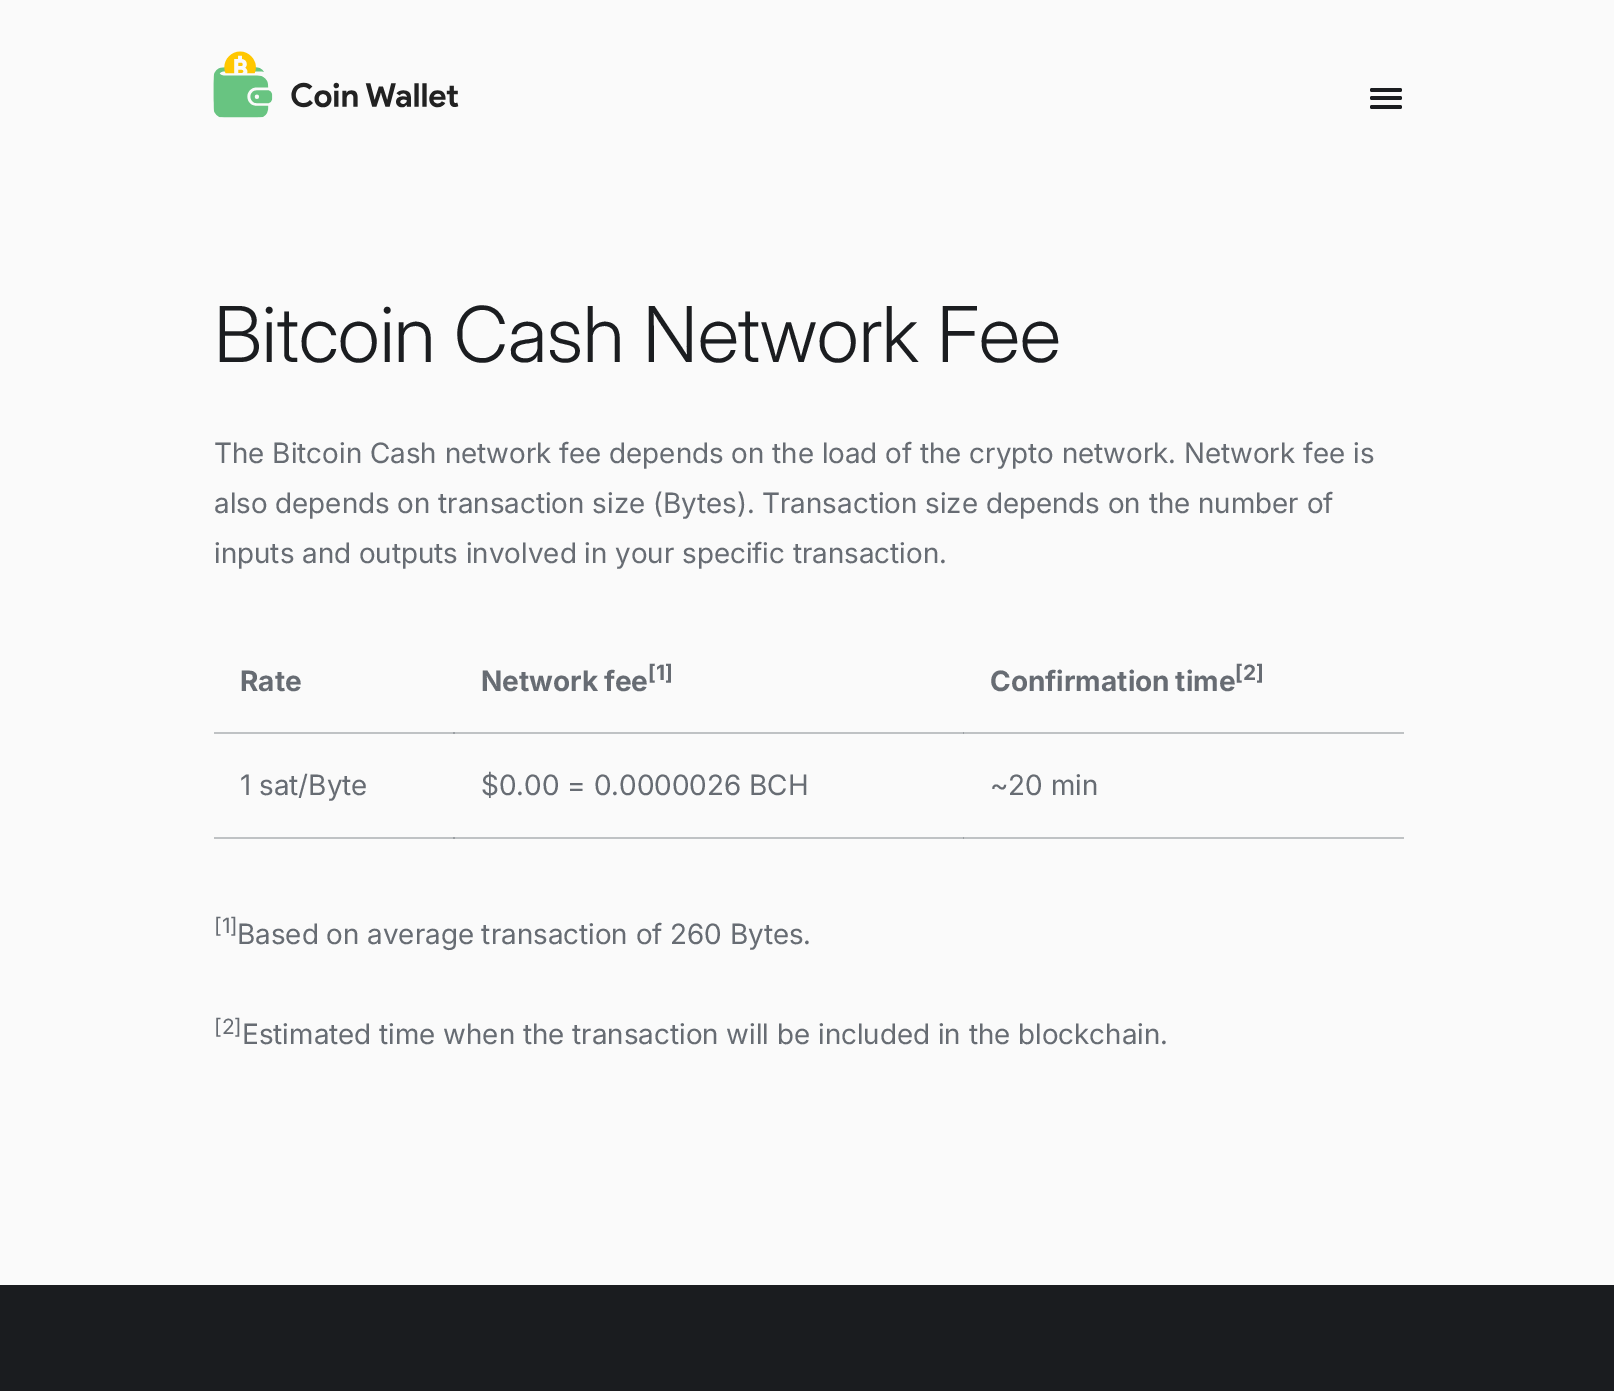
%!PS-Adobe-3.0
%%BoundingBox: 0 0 1614 1391
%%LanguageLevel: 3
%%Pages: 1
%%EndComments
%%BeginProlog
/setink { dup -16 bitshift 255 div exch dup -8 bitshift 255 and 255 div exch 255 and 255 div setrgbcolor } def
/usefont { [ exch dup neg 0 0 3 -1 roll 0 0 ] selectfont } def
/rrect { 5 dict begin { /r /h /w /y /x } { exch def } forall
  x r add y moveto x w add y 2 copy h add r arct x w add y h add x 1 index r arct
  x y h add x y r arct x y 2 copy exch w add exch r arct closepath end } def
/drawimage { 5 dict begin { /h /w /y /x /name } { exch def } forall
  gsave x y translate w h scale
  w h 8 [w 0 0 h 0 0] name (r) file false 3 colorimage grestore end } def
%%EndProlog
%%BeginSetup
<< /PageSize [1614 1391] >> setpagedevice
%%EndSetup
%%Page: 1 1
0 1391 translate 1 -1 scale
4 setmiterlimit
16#FAFAFA setink
0 0 1614 1391 rectfill
[
    [214 732 1190 2 16#BFC2C4]
    [453 732 2 2 16#9CA0A4]
    [214 837 1190 2 16#BFC2C4]
    [453 837 2 2 16#9CA0A4]
] { aload pop setink rectfill } forall
(img1.raw) 213 51 246 67 drawimage
16#1B1D20 setink
1370 88 32 4 2 rrect fill
1370 96 32 4 2 rrect fill
1370 105 32 4 2 rrect fill
/Inter-Light 77 usefont
214 362 moveto (Bitcoin Cash Network Fee) show
/Inter-Regular 28 usefont
16#676C73 setink
[
    [(The Bitcoin Cash network fee depends on the load of the crypto network. Network fee is) 214 463]
    [(also depends on transaction size \(Bytes\). Transaction size depends on the number of) 214 513]
    [(inputs and outputs involved in your specific transaction.) 214 563]
] { aload pop moveto show } forall
/Inter-Bold 28 usefont
240 691 moveto (Rate) show
481 691 moveto -1 0 32 (Network fee) widthshow
/Inter-Bold 21 usefont
648 680 moveto ([1]) show
16#9CA0A4 setink
963 732 1 2 rectfill
/Inter-Bold 28 usefont
16#676C73 setink
990 691 moveto -1 0 32 (Confirmation time) widthshow
/Inter-Bold 21 usefont
1235 680 moveto ([2]) show
/Inter-Regular 28 usefont
240 795 moveto (1 sat/Byte) show
481 795 moveto ($0.00 = 0.0000026 BCH) show
16#9CA0A4 setink
963 837 1 2 rectfill
16#676C73 setink
990 795 moveto (~20 min) show
/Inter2-Regular 21 usefont
214 933 moveto ([1]) show
/Inter-Regular 28 usefont
237 944 moveto (Based on average transaction of 260 Bytes.) show
/Inter2-Regular 21 usefont
214 1034 moveto ([2]) show
/Inter-Regular 28 usefont
242 1044 moveto (Estimated time when the transaction will be included in the blockchain.) show
gsave 0 1285 moveto 1614 1285 lineto 1614 1391 lineto 0 1391 lineto closepath clip newpath
<< /ShadingType 2 /ColorSpace /DeviceRGB /Coords [808 1285 808 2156] /Extend [true true] /Function << /FunctionType 2 /Domain [0 1] /C0 [0.106 0.114 0.125] /C1 [0.078 0.082 0.09] /N 1 >> >> shfill grestore
showpage
%%EOF
